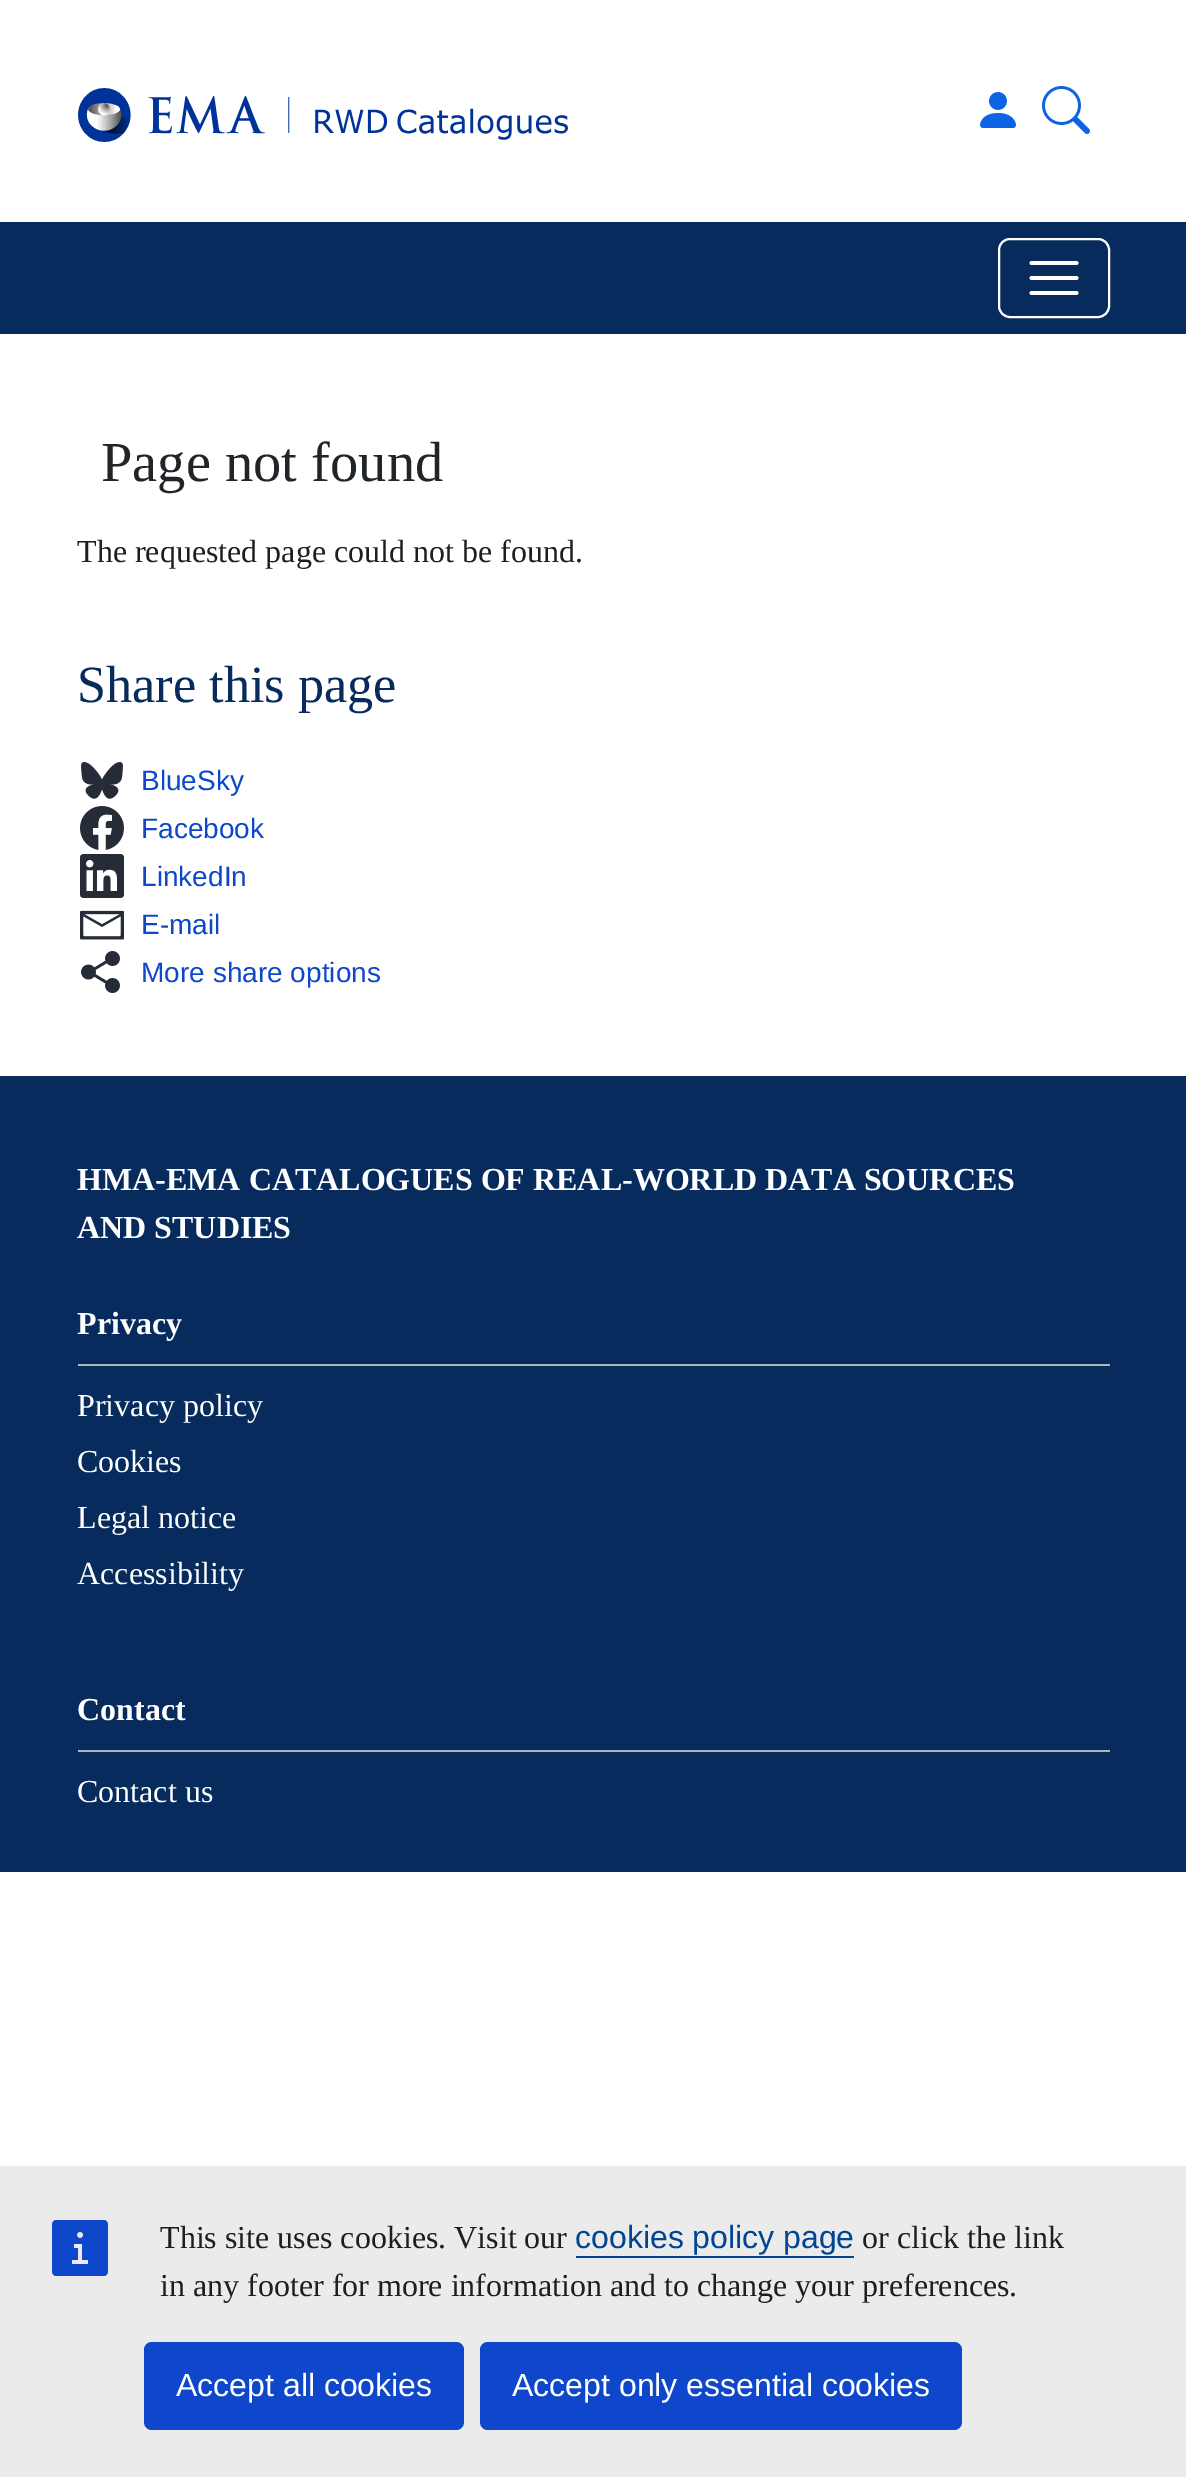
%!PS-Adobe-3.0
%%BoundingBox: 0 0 1186 2477
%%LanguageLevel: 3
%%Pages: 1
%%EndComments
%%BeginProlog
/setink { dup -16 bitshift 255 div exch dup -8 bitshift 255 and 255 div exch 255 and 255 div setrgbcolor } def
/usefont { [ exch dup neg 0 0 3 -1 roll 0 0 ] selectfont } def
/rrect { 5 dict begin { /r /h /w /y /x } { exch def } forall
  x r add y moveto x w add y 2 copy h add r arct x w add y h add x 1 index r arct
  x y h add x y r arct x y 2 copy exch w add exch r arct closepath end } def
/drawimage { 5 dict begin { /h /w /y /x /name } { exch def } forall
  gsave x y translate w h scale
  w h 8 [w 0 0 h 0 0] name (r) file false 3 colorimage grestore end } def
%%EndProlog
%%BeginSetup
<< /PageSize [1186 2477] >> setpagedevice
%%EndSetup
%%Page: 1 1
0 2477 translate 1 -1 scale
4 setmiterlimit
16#FFFFFF setink
0 0 1186 2477 rectfill
(img1.raw) 78 88 490 54 drawimage
(img2.raw) 980 92 36 36 drawimage
(img3.raw) 1042 86 48 48 drawimage
16#072B5D setink
0 222 1186 112 rectfill
16#FFFFFF setink
2 setlinewidth
999 239 110 78 11 rrect stroke
3.8 setlinewidth
1 setlinecap
1031.5 263 moveto 1076.5 263 lineto 1031.5 278 moveto 1076.5 278 lineto 1031.5 293 moveto 1076.5 293 lineto stroke
/LiberationSerif-Regular 56.5 usefont
16#212529 setink
101 481 moveto (Page not found) show
/LiberationSerif-Regular 32 usefont
16#1E1E1E setink
77 562 moveto (The requested page could not be found.) show
/LiberationSerif-Regular 52.25 usefont
16#072B5D setink
77 702 moveto (Share this page) show
(img4.raw) 81 762 42 37 drawimage
/LiberationSans-Regular 28 usefont
16#0E47CB setink
141 790 moveto (BlueSky) show
(img5.raw) 80 806 44 44 drawimage
141 838 moveto (Facebook) show
(img6.raw) 80 854 44 44 drawimage
141 886 moveto (LinkedIn) show
(img7.raw) 80 910 44 30 drawimage
141 934 moveto (E-mail) show
(img8.raw) 81 951 39 42 drawimage
141 982 moveto (More share options) show
16#072B5D setink
0 1076 1186 796 rectfill
/LiberationSerif-Bold 32 usefont
16#FFFFFF setink
77 1190 moveto (HMA-EMA CATALOGUES OF REAL-WORLD DATA SOURCES) show
77 1238 moveto (AND STUDIES) show
16#ADB5BD setink
78 1364 1032 2 rectfill
16#FFFFFF setink
77 1334 moveto (Privacy) show
/LiberationSerif-Regular 32 usefont
[
    [(Privacy policy) 77 1416]
    [(Cookies) 77 1472]
    [(Legal notice) 77 1528]
    [(Accessibility) 77 1584]
] { aload pop moveto show } forall
16#ADB5BD setink
78 1750 1032 2 rectfill
/LiberationSerif-Bold 32 usefont
16#FFFFFF setink
77 1720 moveto (Contact) show
/LiberationSerif-Regular 32 usefont
77 1802 moveto (Contact us) show
16#EBEBEB setink
0 2166 1186 311 rectfill
(img9.raw) 52 2220 56 56 drawimage
16#1E1E1E setink
160 2248 moveto (This site uses cookies. Visit our) show
/LiberationSans-Regular 32 usefont
16#004494 setink
575 2248 moveto (cookies policy page) show
576 2256 278 2 rectfill
/LiberationSerif-Regular 32 usefont
16#1E1E1E setink
862 2248 moveto (or click the link) show
160 2296 moveto (in any footer for more information and to change your preferences.) show
16#0E47CB setink
144 2342 320 88 8 rrect fill
/LiberationSans-Regular 32 usefont
16#FFFFFF setink
176 2396 moveto (Accept all cookies) show
16#0E47CB setink
480 2342 482 88 8 rrect fill
16#FFFFFF setink
512 2396 moveto (Accept only essential cookies) show
showpage
%%EOF
